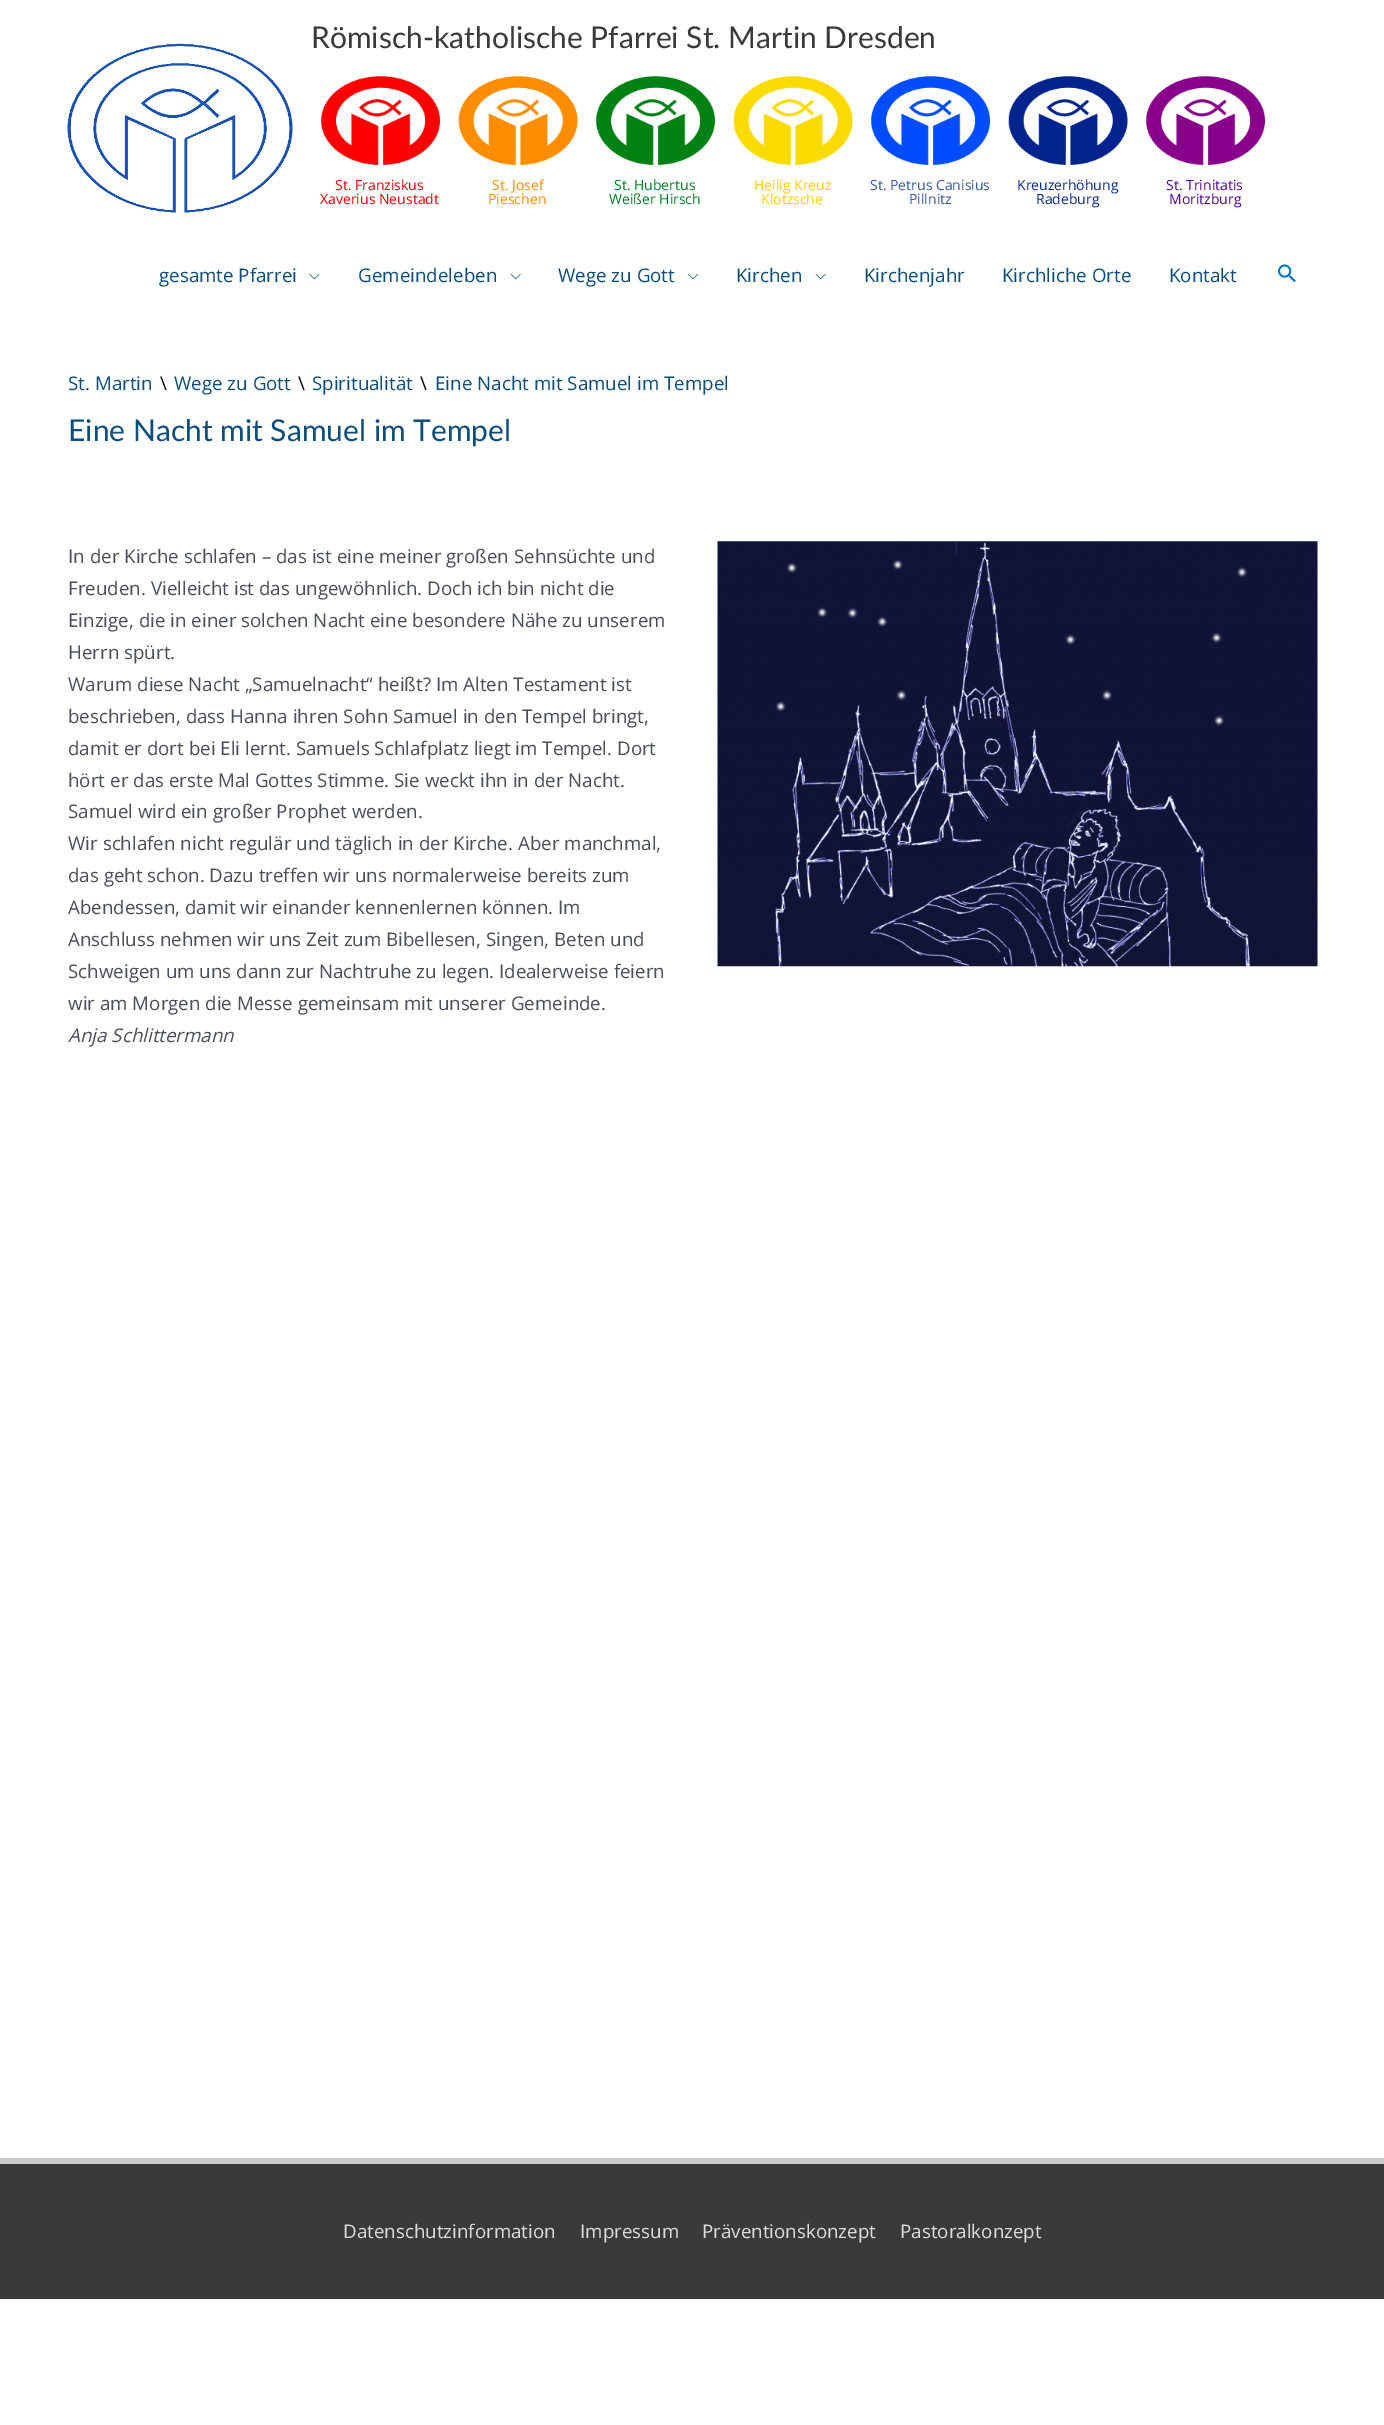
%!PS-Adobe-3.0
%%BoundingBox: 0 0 1384 2425
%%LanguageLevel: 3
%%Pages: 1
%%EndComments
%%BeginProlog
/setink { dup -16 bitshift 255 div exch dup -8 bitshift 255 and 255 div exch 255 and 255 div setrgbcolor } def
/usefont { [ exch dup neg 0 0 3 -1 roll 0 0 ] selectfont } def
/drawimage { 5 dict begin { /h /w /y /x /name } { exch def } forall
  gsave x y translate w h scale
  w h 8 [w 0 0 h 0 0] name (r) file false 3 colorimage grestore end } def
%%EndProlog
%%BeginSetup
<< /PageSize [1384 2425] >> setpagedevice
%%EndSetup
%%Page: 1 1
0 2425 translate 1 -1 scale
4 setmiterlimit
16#FFFFFF setink
0 0 1384 2425 rectfill
(img1.raw) 67 43 226 170 drawimage
/Lato-Regular 30 usefont
16#3A3A3A setink
311 48 moveto (Römisch-katholische Pfarrei St. Martin Dresden) show
(img2.raw) 321 76 119 89 drawimage
/OpenSans-Regular 14 usefont
16#E40303 setink
335 190 moveto (St. Franziskus) show
320 204 moveto (Xaverius Neustadt) show
(img3.raw) 458 76 120 89 drawimage
16#FF8C00 setink
492 190 moveto (St. Josef) show
488 204 moveto (Pieschen) show
(img4.raw) 596 76 119 89 drawimage
16#008026 setink
614 190 moveto (St. Hubertus) show
609 204 moveto (Weißer Hirsch) show
(img5.raw) 733 76 120 89 drawimage
16#FFCC00 setink
754 190 moveto (Heilig Kreuz) show
761 204 moveto (Klotzsche) show
(img6.raw) 871 76 119 89 drawimage
16#36579D setink
870 190 moveto (St. Petrus Canisius) show
909 204 moveto (Pillnitz) show
(img7.raw) 1008 76 120 89 drawimage
16#072889 setink
1017 190 moveto (Kreuzerhöhung) show
1036 204 moveto (Radeburg) show
(img8.raw) 1146 76 119 89 drawimage
16#50078E setink
1166 190 moveto (St. Trinitatis) show
1169 204 moveto (Moritzburg) show
/OpenSans-Regular 18.75 usefont
16#0E4D7C setink
159 282 moveto (gesamte Pfarrei) show
(img9.raw) 309 273 11 7 drawimage
358 282 moveto (Gemeindeleben) show
(img10.raw) 510 273 11 7 drawimage
558 282 moveto (Wege zu Gott) show
(img11.raw) 688 273 11 7 drawimage
736 282 moveto (Kirchen) show
(img10.raw) 815 273 11 7 drawimage
[
    [(Kirchenjahr) 864 282]
    [(Kirchliche Orte) 1002 282]
    [(Kontakt) 1169 282]
] { aload pop moveto show } forall
(img12.raw) 1278 264 18 19 drawimage
68 390 moveto (St. Martin) show
16#000000 setink
160 390 moveto (\\) show
16#0E4D7C setink
174 390 moveto (Wege zu Gott) show
16#000000 setink
298 390 moveto (\\) show
16#0E4D7C setink
312 390 moveto (Spiritualität) show
16#000000 setink
420 390 moveto (\\) show
16#0E4D7C setink
435 390 moveto (Eine Nacht mit Samuel im Tempel) show
/Lato-Regular 30 usefont
68 441 moveto (Eine Nacht mit Samuel im Tempel) show
/OpenSans-Regular 18.75 usefont
16#4B4F58 setink
[
    [(In der Kirche schlafen – das ist eine meiner großen Sehnsüchte und) 68 563]
    [(Freuden. Vielleicht ist das ungewöhnlich. Doch ich bin nicht die) 68 595]
    [(Einzige, die in einer solchen Nacht eine besondere Nähe zu unserem) 68 627]
    [(Herrn spürt.) 68 659]
    [(Warum diese Nacht „Samuelnacht“ heißt? Im Alten Testament ist) 68 691]
    [(beschrieben, dass Hanna ihren Sohn Samuel in den Tempel bringt,) 68 723]
    [(damit er dort bei Eli lernt. Samuels Schlafplatz liegt im Tempel. Dort) 68 755]
    [(hört er das erste Mal Gottes Stimme. Sie weckt ihn in der Nacht.) 68 787]
    [(Samuel wird ein großer Prophet werden.) 68 818]
    [(Wir schlafen nicht regulär und täglich in der Kirche. Aber manchmal,) 68 850]
    [(das geht schon. Dazu treffen wir uns normalerweise bereits zum) 68 882]
    [(Abendessen, damit wir einander kennenlernen können. Im) 68 914]
    [(Anschluss nehmen wir uns Zeit zum Bibellesen, Singen, Beten und) 68 946]
    [(Schweigen um uns dann zur Nachtruhe zu legen. Idealerweise feiern) 68 978]
    [(wir am Morgen die Messe gemeinsam mit unserer Gemeinde.) 68 1010]
] { aload pop moveto show } forall
/OpenSans-Italic 18.75 usefont
68 1042 moveto (Anja Schlittermann) show
(img13.raw) 717 541 601 426 drawimage
16#CCCCCC setink
0 2158 1384 6 rectfill
16#3A3A3A setink
0 2164 1384 135 rectfill
/OpenSans-Regular 18.75 usefont
16#DDDDDD setink
[
    [(Datenschutzinformation) 343 2238]
    [(Impressum) 580 2238]
    [(Präventionskonzept) 702 2238]
    [(Pastoralkonzept) 900 2238]
] { aload pop moveto show } forall
showpage
%%EOF
